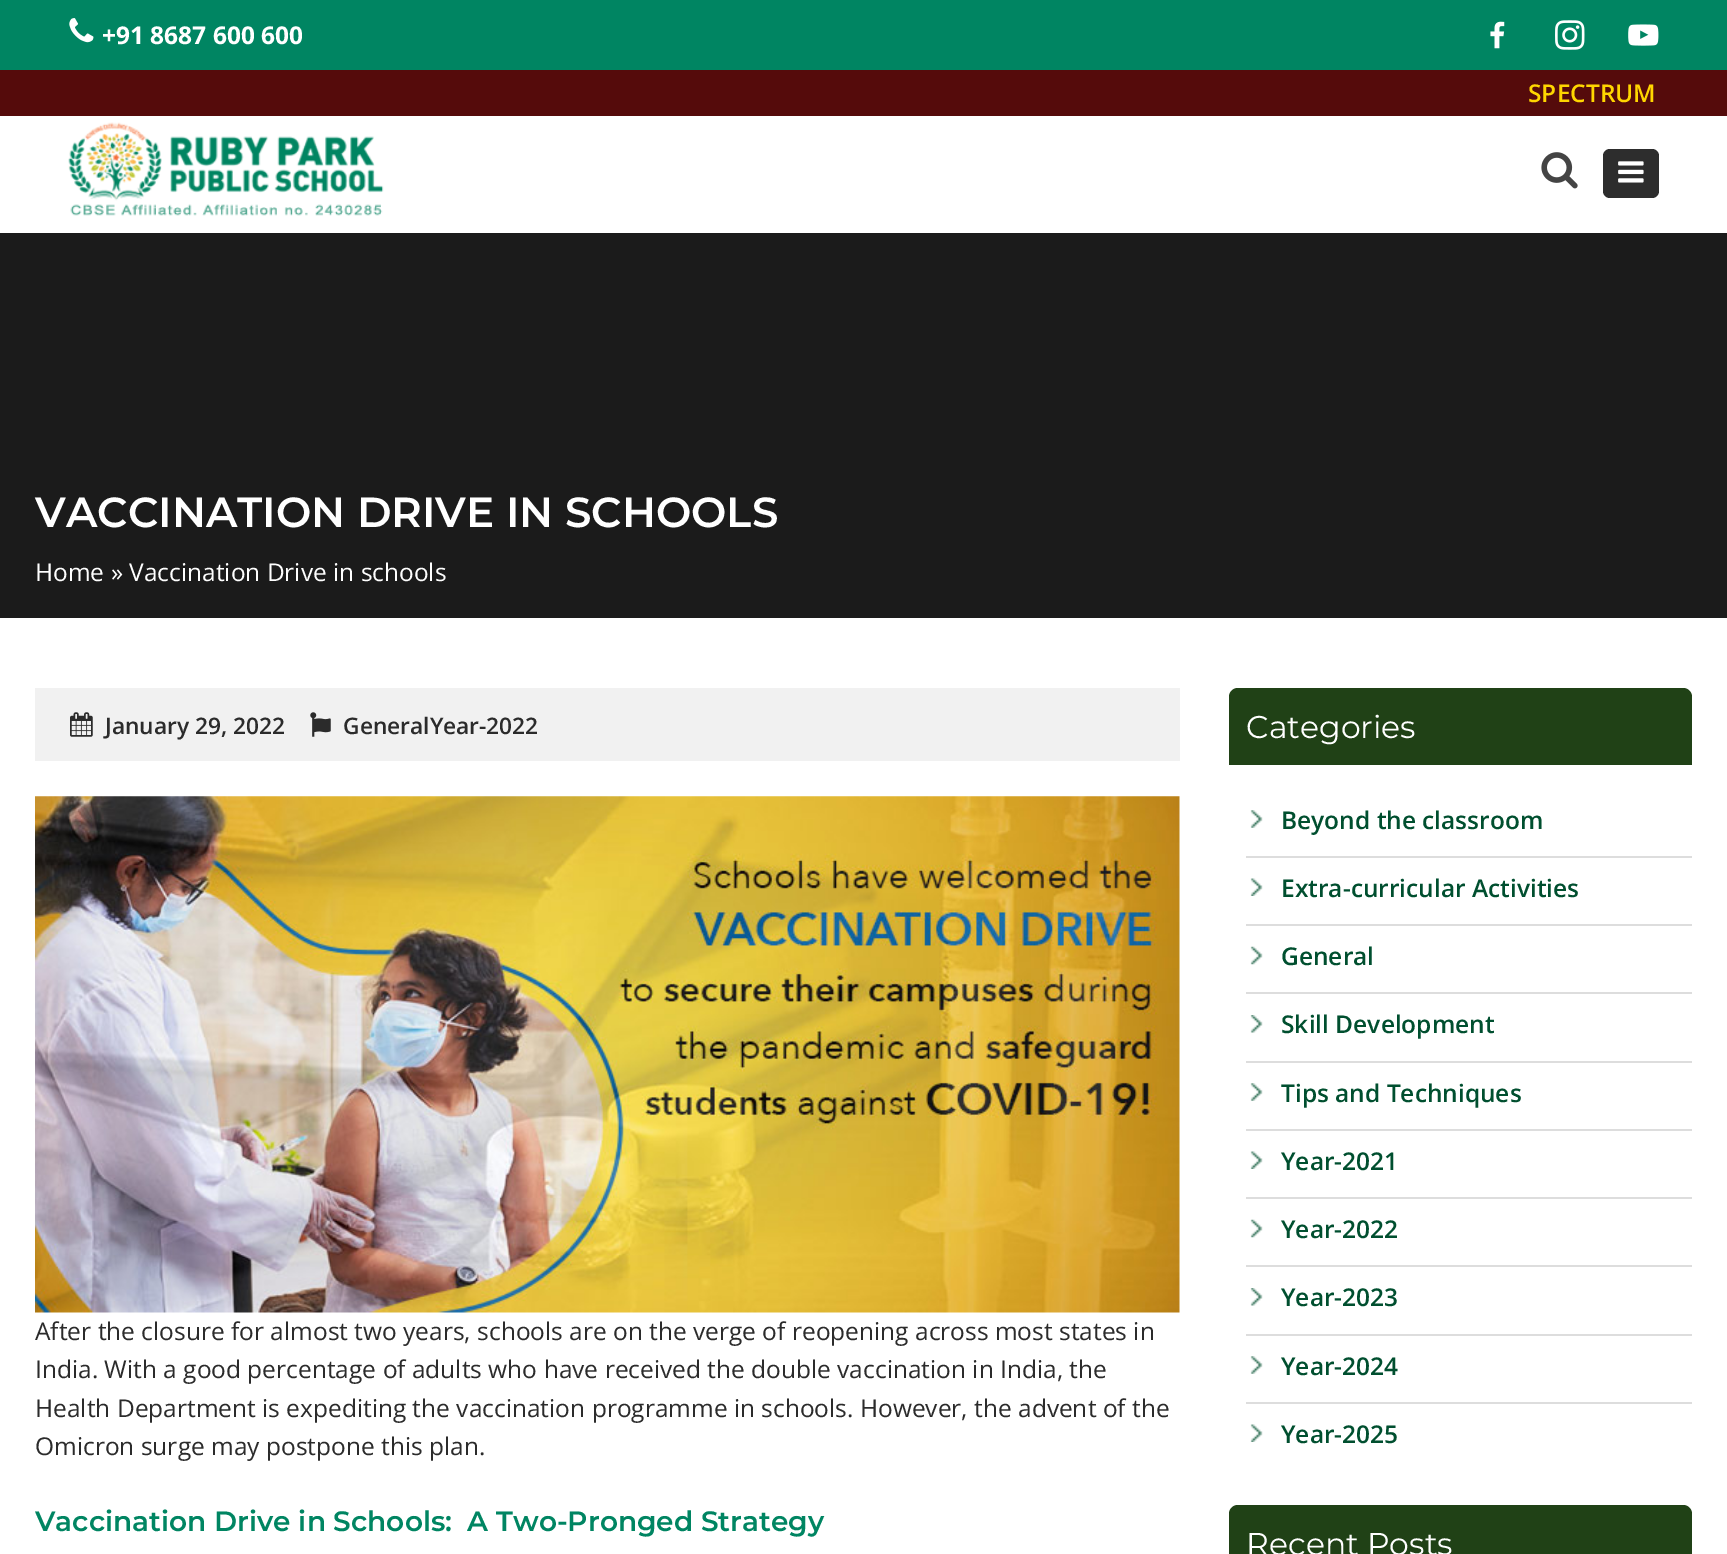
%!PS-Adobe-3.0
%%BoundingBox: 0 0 1727 1554
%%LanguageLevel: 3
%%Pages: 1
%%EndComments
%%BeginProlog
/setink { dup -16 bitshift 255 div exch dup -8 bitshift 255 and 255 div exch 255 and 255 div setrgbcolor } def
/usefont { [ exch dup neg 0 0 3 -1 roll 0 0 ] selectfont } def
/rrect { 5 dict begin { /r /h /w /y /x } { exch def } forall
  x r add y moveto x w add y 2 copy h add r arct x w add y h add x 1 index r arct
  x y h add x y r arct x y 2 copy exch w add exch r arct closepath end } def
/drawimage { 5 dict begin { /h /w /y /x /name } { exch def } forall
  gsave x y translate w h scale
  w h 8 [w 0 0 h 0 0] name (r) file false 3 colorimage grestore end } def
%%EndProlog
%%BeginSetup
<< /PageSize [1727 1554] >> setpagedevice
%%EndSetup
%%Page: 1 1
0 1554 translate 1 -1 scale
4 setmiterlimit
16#FFFFFF setink
0 0 1727 1554 rectfill
16#008562 setink
0 0 1727 70 rectfill
(img1.raw) 69 18 25 25 drawimage
/OpenSans-Bold 24.5 usefont
16#FFFFFF setink
102 44 moveto (+91 8687 600 600) show
(img2.raw) 1490 21 15 28 drawimage
(img3.raw) 1555 20 30 30 drawimage
(img4.raw) 1628 24 31 22 drawimage
16#550B0B setink
0 70 1727 46 rectfill
/OpenSans-SemiBold 24.5 usefont
16#FFD600 setink
1528 102 moveto (SPECTRUM) show
(img5.raw) 68 122 316 94 drawimage
(img6.raw) 1541 152 37 37 drawimage
16#2D2D2D setink
1603 149 56 49 7 rrect fill
(img7.raw) 1618 161 26 22 drawimage
16#1B1B1B setink
0 233 1727 385 rectfill
/Montserrat-SemiBold 42 usefont
16#FFFFFF setink
35 527 moveto (VACCINATION DRIVE IN SCHOOLS) show
/OpenSans-Regular 24.5 usefont
35 581 moveto (Home » Vaccination Drive in schools) show
16#F1F1F1 setink
35 688 1145 73 rectfill
(img8.raw) 70 712 23 25 drawimage
/OpenSans-SemiBold 22.75 usefont
16#2B2B2B setink
105 734 moveto (January 29, 2022) show
(img9.raw) 310 712 21 25 drawimage
343 734 moveto (GeneralYear-2022) show
(img10.raw) 35 796 1145 517 drawimage
/OpenSans-Regular 24.5 usefont
[
    [(After the closure for almost two years, schools are on the verge of reopening across most states in) 35 1340]
    [(India. With a good percentage of adults who have received the double vaccination in India, the) 35 1378]
    [(Health Department is expediting the vaccination programme in schools. However, the advent of the) 35 1417]
    [(Omicron surge may postpone this plan.) 35 1455]
] { aload pop moveto show } forall
/Montserrat-SemiBold 28 usefont
16#008562 setink
35 1531 moveto (Vaccination Drive in Schools:  A Two-Pronged Strategy) show
16#204116 setink
1238 688 moveto 1683 688 lineto 1688 688 1692 692 1692 697 curveto 1692 765 lineto 1229 765 lineto 1229 697 lineto 1229 692 1233 688 1238 688 curveto closepath fill
/Montserrat-Regular 31.5 usefont
16#FFFFFF setink
1246 738 moveto (Categories) show
(img11.raw) 1250 810 13 18 drawimage
16#DDDDDD setink
1246 856 446 2 rectfill
/OpenSans-SemiBold 24.5 usefont
16#004F2F setink
1281 829 moveto (Beyond the classroom) show
(img12.raw) 1250 878 13 18 drawimage
16#DDDDDD setink
1246 924 446 2 rectfill
16#004F2F setink
1281 897 moveto (Extra-curricular Activities) show
(img13.raw) 1250 946 13 19 drawimage
16#DDDDDD setink
1246 992 446 2 rectfill
16#004F2F setink
1281 965 moveto (General) show
(img14.raw) 1250 1015 13 18 drawimage
16#DDDDDD setink
1246 1061 446 2 rectfill
16#004F2F setink
1281 1033 moveto (Skill Development) show
(img11.raw) 1250 1083 13 18 drawimage
16#DDDDDD setink
1246 1129 446 2 rectfill
16#004F2F setink
1281 1102 moveto (Tips and Techniques) show
(img12.raw) 1250 1151 13 18 drawimage
16#DDDDDD setink
1246 1197 446 2 rectfill
16#004F2F setink
1281 1170 moveto (Year-2021) show
(img13.raw) 1250 1219 13 19 drawimage
16#DDDDDD setink
1246 1265 446 2 rectfill
16#004F2F setink
1281 1238 moveto (Year-2022) show
(img14.raw) 1250 1288 13 18 drawimage
16#DDDDDD setink
1246 1334 446 2 rectfill
16#004F2F setink
1281 1306 moveto (Year-2023) show
(img11.raw) 1250 1356 13 18 drawimage
16#DDDDDD setink
1246 1402 446 2 rectfill
16#004F2F setink
1281 1375 moveto (Year-2024) show
(img12.raw) 1250 1424 13 18 drawimage
1281 1443 moveto (Year-2025) show
16#204116 setink
1238 1505 moveto 1683 1505 lineto 1688 1505 1692 1509 1692 1514 curveto 1692 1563 lineto 1229 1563 lineto 1229 1514 lineto 1229 1509 1233 1505 1238 1505 curveto closepath fill
/Montserrat-Regular 31.5 usefont
16#FFFFFF setink
1246 1555 moveto (Recent Posts) show
showpage
%%EOF
